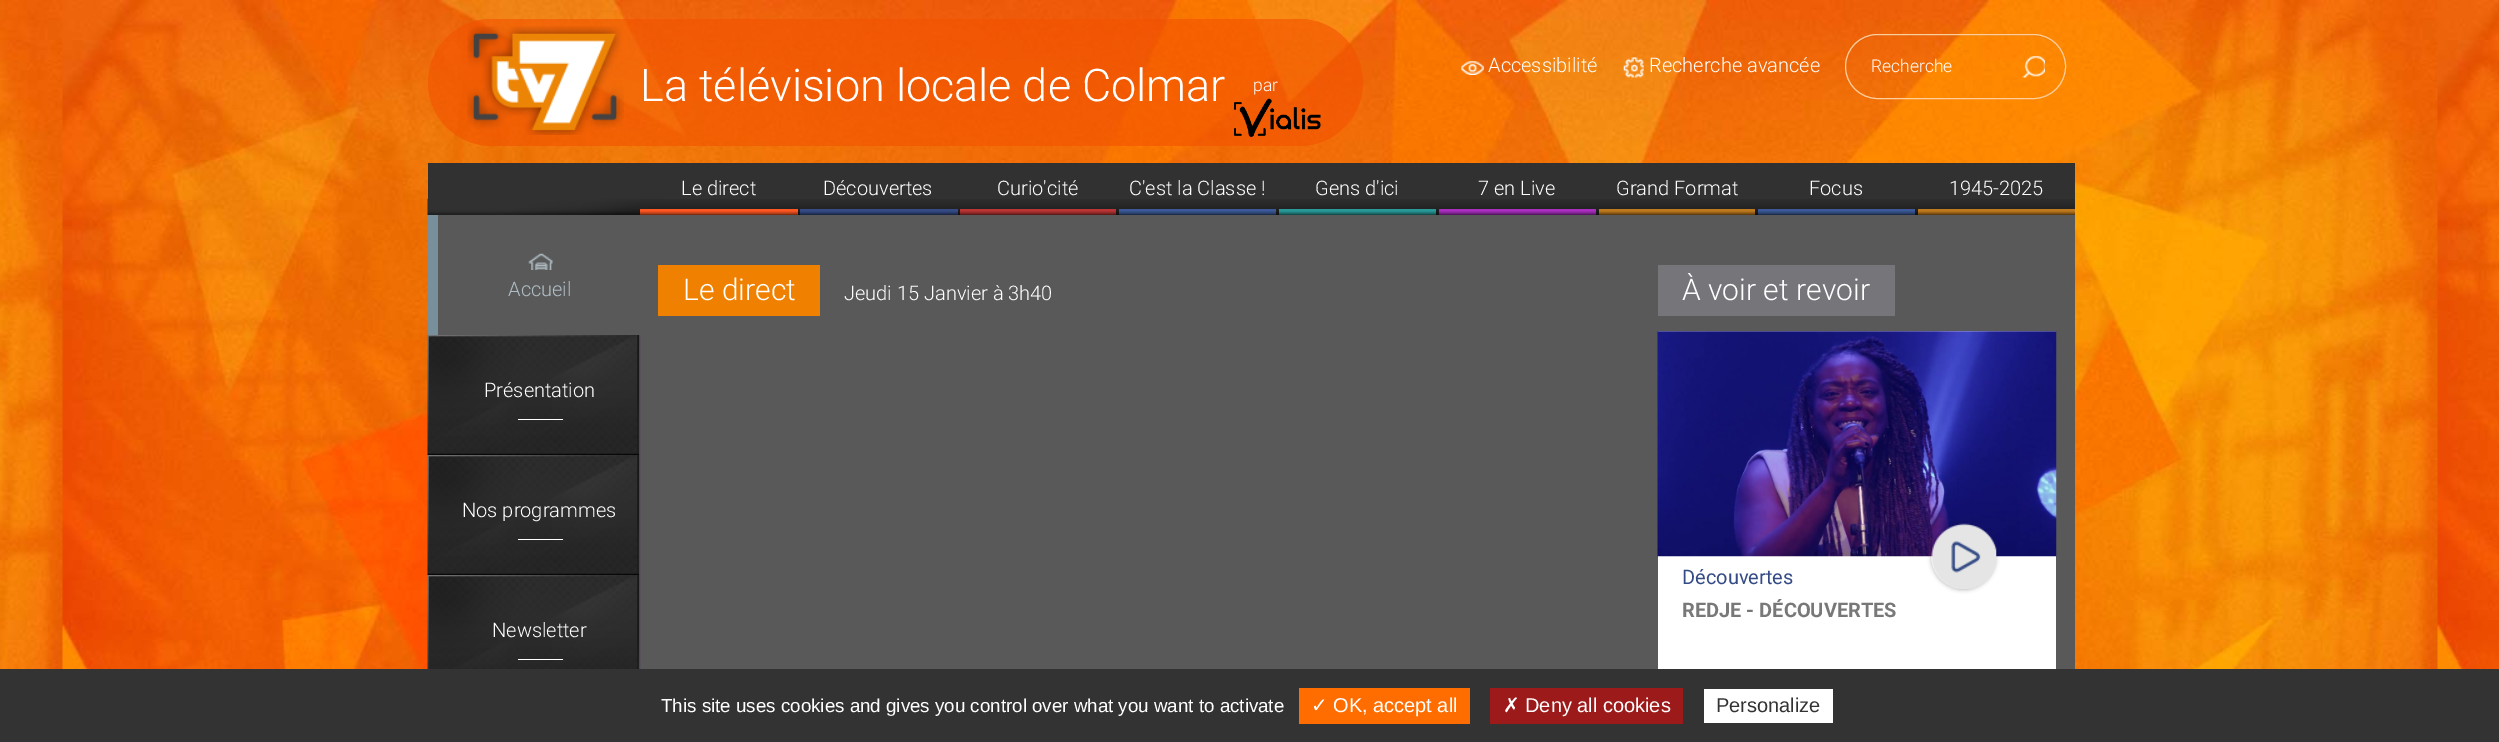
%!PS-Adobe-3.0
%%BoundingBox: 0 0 2499 742
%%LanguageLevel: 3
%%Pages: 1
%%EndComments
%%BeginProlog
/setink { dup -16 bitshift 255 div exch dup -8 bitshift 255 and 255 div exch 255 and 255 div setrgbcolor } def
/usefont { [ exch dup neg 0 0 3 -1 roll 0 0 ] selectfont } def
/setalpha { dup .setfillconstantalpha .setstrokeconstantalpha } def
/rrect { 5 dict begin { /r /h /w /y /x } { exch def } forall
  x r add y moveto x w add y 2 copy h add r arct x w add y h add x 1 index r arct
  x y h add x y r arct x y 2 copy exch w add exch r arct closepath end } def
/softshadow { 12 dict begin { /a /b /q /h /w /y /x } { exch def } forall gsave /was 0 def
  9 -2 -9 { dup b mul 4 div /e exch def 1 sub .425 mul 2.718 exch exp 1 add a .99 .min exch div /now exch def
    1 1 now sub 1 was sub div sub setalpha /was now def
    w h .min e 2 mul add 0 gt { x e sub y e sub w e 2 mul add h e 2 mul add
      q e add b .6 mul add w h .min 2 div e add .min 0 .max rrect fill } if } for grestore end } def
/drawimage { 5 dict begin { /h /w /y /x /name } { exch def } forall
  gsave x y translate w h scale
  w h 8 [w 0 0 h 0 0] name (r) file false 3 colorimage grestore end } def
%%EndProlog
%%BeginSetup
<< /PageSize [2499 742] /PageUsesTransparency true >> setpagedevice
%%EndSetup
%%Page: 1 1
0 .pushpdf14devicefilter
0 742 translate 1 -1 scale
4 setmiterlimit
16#FFFFFF setink
0 0 2499 742 rectfill
(img1.raw) 0 0 2499 669 drawimage
(img2.raw) 1461 61 23 14 drawimage
/Roboto-Light 20 usefont
1488 72 moveto (Accessibilité) show
(img3.raw) 1623 57 21 21 drawimage
1649 72 moveto (Recherche avancée) show
0.07 setalpha
16#000000 setink
1878 36 moveto 2034 36 lineto 2051 36 2065 50 2065 67 curveto 2065 66 lineto 2065 49 2051 35 2034 35 curveto 1878 35 lineto 1860 35 1846 49 1846 66 curveto 1846 67 lineto 1846 50 1860 36 1878 36 curveto closepath fill
1 setalpha
16#FFCE9D setink
1845.5 34.5 220 64 32 rrect stroke
/Roboto-Light 17.5 usefont
16#FFFFFF setink
1871 72 moveto (Recherche) show
(img4.raw) 2022 56 23 22 drawimage
0.6 setalpha
16#F35100 setink
428 19 935 127 63.5 rrect fill
1 setalpha
(img5.raw) 467 26 157 109 drawimage
/Roboto-Light 45 usefont
16#FFFFFF setink
640 101 moveto (La télévision locale de Colmar) show
/Roboto-Light 17.5 usefont
1253 91 moveto (par) show
(img6.raw) 1234 98 87 39 drawimage
16#313131 setink
428 163 1647 36 rectfill
(img7.raw) 427 198 235 17 drawimage
(img8.raw) 661 199 1414 16 drawimage
/Roboto-Light 20 usefont
16#FFFFFF setink
681 195 moveto (Le direct) show
16#FE5722 setink
640 209 158 2 rectfill
gsave 640 211 moveto 798 211 lineto 798 215 lineto 640 215 lineto closepath clip newpath
<< /ShadingType 2 /ColorSpace /DeviceRGB /Coords [719 211 719 215] /Extend [true true] /Function << /FunctionType 2 /Domain [0 1] /C0 [0.996 0.341 0.133] /C1 [0.498 0.173 0.067] /N 1 >> >> shfill grestore
16#FFFFFF setink
823 195 moveto (Découvertes) show
16#344B85 setink
800 209 158 2 rectfill
gsave 800 211 moveto 958 211 lineto 958 215 lineto 800 215 lineto closepath clip newpath
<< /ShadingType 2 /ColorSpace /DeviceRGB /Coords [879 211 879 215] /Extend [true true] /Function << /FunctionType 2 /Domain [0 1] /C0 [0.204 0.294 0.522] /C1 [0.102 0.149 0.263] /N 1 >> >> shfill grestore
16#FFFFFF setink
997 195 moveto (Curio'cité) show
16#B93434 setink
960 209 156 2 rectfill
gsave 960 211 moveto 1116 211 lineto 1116 215 lineto 960 215 lineto closepath clip newpath
<< /ShadingType 2 /ColorSpace /DeviceRGB /Coords [1038 211 1038 215] /Extend [true true] /Function << /FunctionType 2 /Domain [0 1] /C0 [0.725 0.204 0.204] /C1 [0.365 0.102 0.102] /N 1 >> >> shfill grestore
16#FFFFFF setink
1129 195 moveto (C'est la Classe !) show
16#3B5998 setink
1119 209 157 2 rectfill
gsave 1119 211 moveto 1276 211 lineto 1276 215 lineto 1119 215 lineto closepath clip newpath
<< /ShadingType 2 /ColorSpace /DeviceRGB /Coords [1198 211 1198 215] /Extend [true true] /Function << /FunctionType 2 /Domain [0 1] /C0 [0.231 0.349 0.596] /C1 [0.118 0.176 0.298] /N 1 >> >> shfill grestore
16#FFFFFF setink
1315 195 moveto (Gens d'ici) show
16#289997 setink
1279 209 157 2 rectfill
gsave 1279 211 moveto 1436 211 lineto 1436 215 lineto 1279 215 lineto closepath clip newpath
<< /ShadingType 2 /ColorSpace /DeviceRGB /Coords [1358 211 1358 215] /Extend [true true] /Function << /FunctionType 2 /Domain [0 1] /C0 [0.157 0.6 0.592] /C1 [0.078 0.302 0.298] /N 1 >> >> shfill grestore
16#FFFFFF setink
1478 195 moveto (7 en Live) show
16#AA2EBF setink
1439 209 157 2 rectfill
gsave 1439 211 moveto 1596 211 lineto 1596 215 lineto 1439 215 lineto closepath clip newpath
<< /ShadingType 2 /ColorSpace /DeviceRGB /Coords [1518 211 1518 215] /Extend [true true] /Function << /FunctionType 2 /Domain [0 1] /C0 [0.667 0.18 0.749] /C1 [0.333 0.09 0.376] /N 1 >> >> shfill grestore
16#FFFFFF setink
1616 195 moveto (Grand Format) show
16#BE791C setink
1599 209 156 2 rectfill
gsave 1599 211 moveto 1755 211 lineto 1755 215 lineto 1599 215 lineto closepath clip newpath
<< /ShadingType 2 /ColorSpace /DeviceRGB /Coords [1677 211 1677 215] /Extend [true true] /Function << /FunctionType 2 /Domain [0 1] /C0 [0.745 0.475 0.11] /C1 [0.373 0.239 0.055] /N 1 >> >> shfill grestore
16#FFFFFF setink
1809 195 moveto (Focus) show
16#3B5998 setink
1758 209 157 2 rectfill
gsave 1758 211 moveto 1915 211 lineto 1915 215 lineto 1758 215 lineto closepath clip newpath
<< /ShadingType 2 /ColorSpace /DeviceRGB /Coords [1836 211 1836 215] /Extend [true true] /Function << /FunctionType 2 /Domain [0 1] /C0 [0.231 0.349 0.596] /C1 [0.118 0.176 0.298] /N 1 >> >> shfill grestore
16#FFFFFF setink
1949 195 moveto (1945-2025) show
16#BE791C setink
1918 209 157 2 rectfill
gsave 1918 211 moveto 2075 211 lineto 2075 215 lineto 1918 215 lineto closepath clip newpath
<< /ShadingType 2 /ColorSpace /DeviceRGB /Coords [1996 211 1996 215] /Extend [true true] /Function << /FunctionType 2 /Domain [0 1] /C0 [0.745 0.475 0.11] /C1 [0.373 0.239 0.055] /N 1 >> >> shfill grestore
16#595959 setink
438 215 203 120 rectfill
16#78909C setink
428 215 10 120 rectfill
(img9.raw) 528 253 25 17 drawimage
16#B0BEC5 setink
508 296 moveto (Accueil) show
(img10.raw) 427 335 214 120 drawimage
16#FFFFFF setink
484 397 moveto (Présentation) show
518 419 45 1 rectfill
16#070707 setink
638 454 1 1 rectfill
(img11.raw) 427 455 214 120 drawimage
16#FFFFFF setink
462 517 moveto (Nos programmes) show
518 539 45 1 rectfill
16#070707 setink
638 574 1 1 rectfill
(img12.raw) 427 575 214 94 drawimage
16#FFFFFF setink
492 637 moveto (Newsletter) show
[
    [518 659 45 1 16#FFFFFF]
    [641 215 1434 454 16#595959]
    [658 265 162 51 16#F08000]
] { aload pop setink rectfill } forall
/Roboto-Light 30 usefont
16#FFFFFF setink
683 300 moveto (Le direct) show
/Roboto-Light 20 usefont
844 300 moveto (Jeudi 15 Janvier à 3h40) show
16#76757A setink
1658 265 237 51 rectfill
/Roboto-Light 30 usefont
16#FFFFFF setink
1682 300 moveto (À voir et revoir) show
1658 331 398 338 rectfill
(img13.raw) 1657 331 400 226 drawimage
/Roboto-Regular 20 usefont
16#344B85 setink
1682 584 moveto (Découvertes) show
gsave
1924 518 moveto 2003 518 lineto 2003 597 lineto 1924 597 lineto closepath 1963.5 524 moveto 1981.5 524 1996 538.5 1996 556.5 curveto 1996 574.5 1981.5 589 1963.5 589 curveto 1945.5 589 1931 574.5 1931 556.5 curveto 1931 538.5 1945.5 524 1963.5 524 curveto closepath eoclip newpath
16#000000 setink
1931 525 65 65 32.5 2 0.25 softshadow
grestore
1951 541 30 32 rectfill
(img14.raw) 1931 523 66 66 drawimage
/Roboto-Bold 20 usefont
16#787878 setink
1682 617 moveto (REDJE - DÉCOUVERTES) show
16#333333 setink
0 669 2499 73 rectfill
/LiberationSans-Regular 18.75 usefont
16#FFFFFF setink
661 712 moveto (This site uses cookies and gives you control over what you want to activate) show
16#FF6D00 setink
1299 688 171 36 rectfill
/DejaVuSans-Regular 20 usefont
16#FFFFFF setink
1311 712 moveto (✓) show
/LiberationSans-Regular 20 usefont
1333 712 moveto (OK, accept all) show
16#9C1A1A setink
1490 688 193 36 rectfill
/DejaVuSans-Regular 20 usefont
16#FFFFFF setink
1503 712 moveto (✗) show
/LiberationSans-Regular 20 usefont
1525 712 moveto (Deny all cookies) show
1704 689 129 34 rectfill
16#333333 setink
1716 712 moveto (Personalize) show
.poppdf14devicefilter showpage
%%EOF
